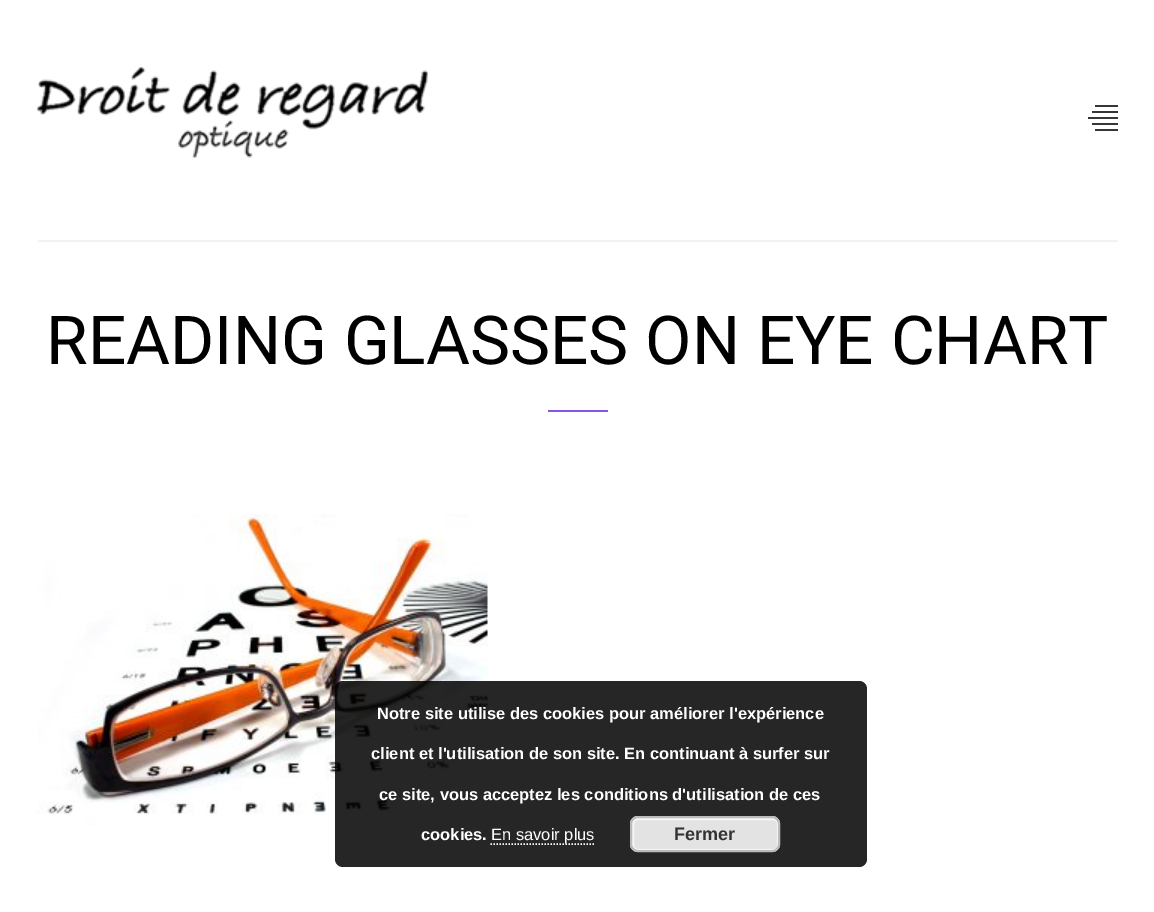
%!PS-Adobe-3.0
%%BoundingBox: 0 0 1154 912
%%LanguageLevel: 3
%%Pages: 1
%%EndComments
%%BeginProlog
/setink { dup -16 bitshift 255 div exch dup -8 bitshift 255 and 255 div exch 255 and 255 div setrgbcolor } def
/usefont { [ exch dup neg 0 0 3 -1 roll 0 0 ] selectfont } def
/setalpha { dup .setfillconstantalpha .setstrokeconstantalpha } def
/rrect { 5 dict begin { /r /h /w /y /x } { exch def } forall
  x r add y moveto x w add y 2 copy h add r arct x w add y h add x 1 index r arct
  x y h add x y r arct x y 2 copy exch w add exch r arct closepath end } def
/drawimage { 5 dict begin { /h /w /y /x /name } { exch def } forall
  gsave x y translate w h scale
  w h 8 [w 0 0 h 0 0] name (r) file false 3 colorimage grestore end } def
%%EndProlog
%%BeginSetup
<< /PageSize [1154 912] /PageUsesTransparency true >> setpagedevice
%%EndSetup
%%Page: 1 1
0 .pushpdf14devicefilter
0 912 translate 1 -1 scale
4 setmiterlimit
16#FFFFFF setink
0 0 1154 912 rectfill
(img1.raw) 37 67 391 91 drawimage
[
    [1095 105 23 2 16#363636]
    [1088 117 30 2 16#363636]
    [1092 111 26 2 16#363636]
    [1092 123 26 2 16#363636]
    [1095 129 23 2 16#363636]
    [38 240 1080 2 16#F2F2F2]
] { aload pop setink rectfill } forall
/Roboto-Regular 67.5 usefont
16#000000 setink
46 364 moveto (READING GLASSES ON EYE CHART) show
16#8954EA setink
548 410 60 2 rectfill
(img2.raw) 37 514 451 312 drawimage
0.85 setalpha
16#000000 setink
335 681 532 186 8 rrect fill
/LiberationSans-Bold 16.5 usefont
1 setalpha
16#FFFFFF setink
[
    [(Notre site utilise des cookies pour améliorer l'expérience) 377 719]
    [(client et l'utilisation de son site. En continuant à surfer sur) 371 759]
    [(ce site, vous acceptez les conditions d'utilisation de ces) 379 800]
    [(cookies.) 421 840]
] { aload pop moveto show } forall
1.5 setlinewidth
[1.5 1.5] 0 setdash
490.5 844 moveto 595.5 844 lineto stroke
/LiberationSans-Regular 16.5 usefont
491 840 moveto (En savoir plus) show
16#E3E3E3 setink
630 816 150 36 8 rrect fill
16#F6F6F6 setink
2 setlinewidth
[] 0 setdash
633 819 145 31 5 rrect stroke
16#BBBBBB setink
631 817 148 34 7 rrect stroke
/LiberationSans-Bold 18 usefont
16#333333 setink
674 840 moveto (Fermer) show
.poppdf14devicefilter showpage
%%EOF
